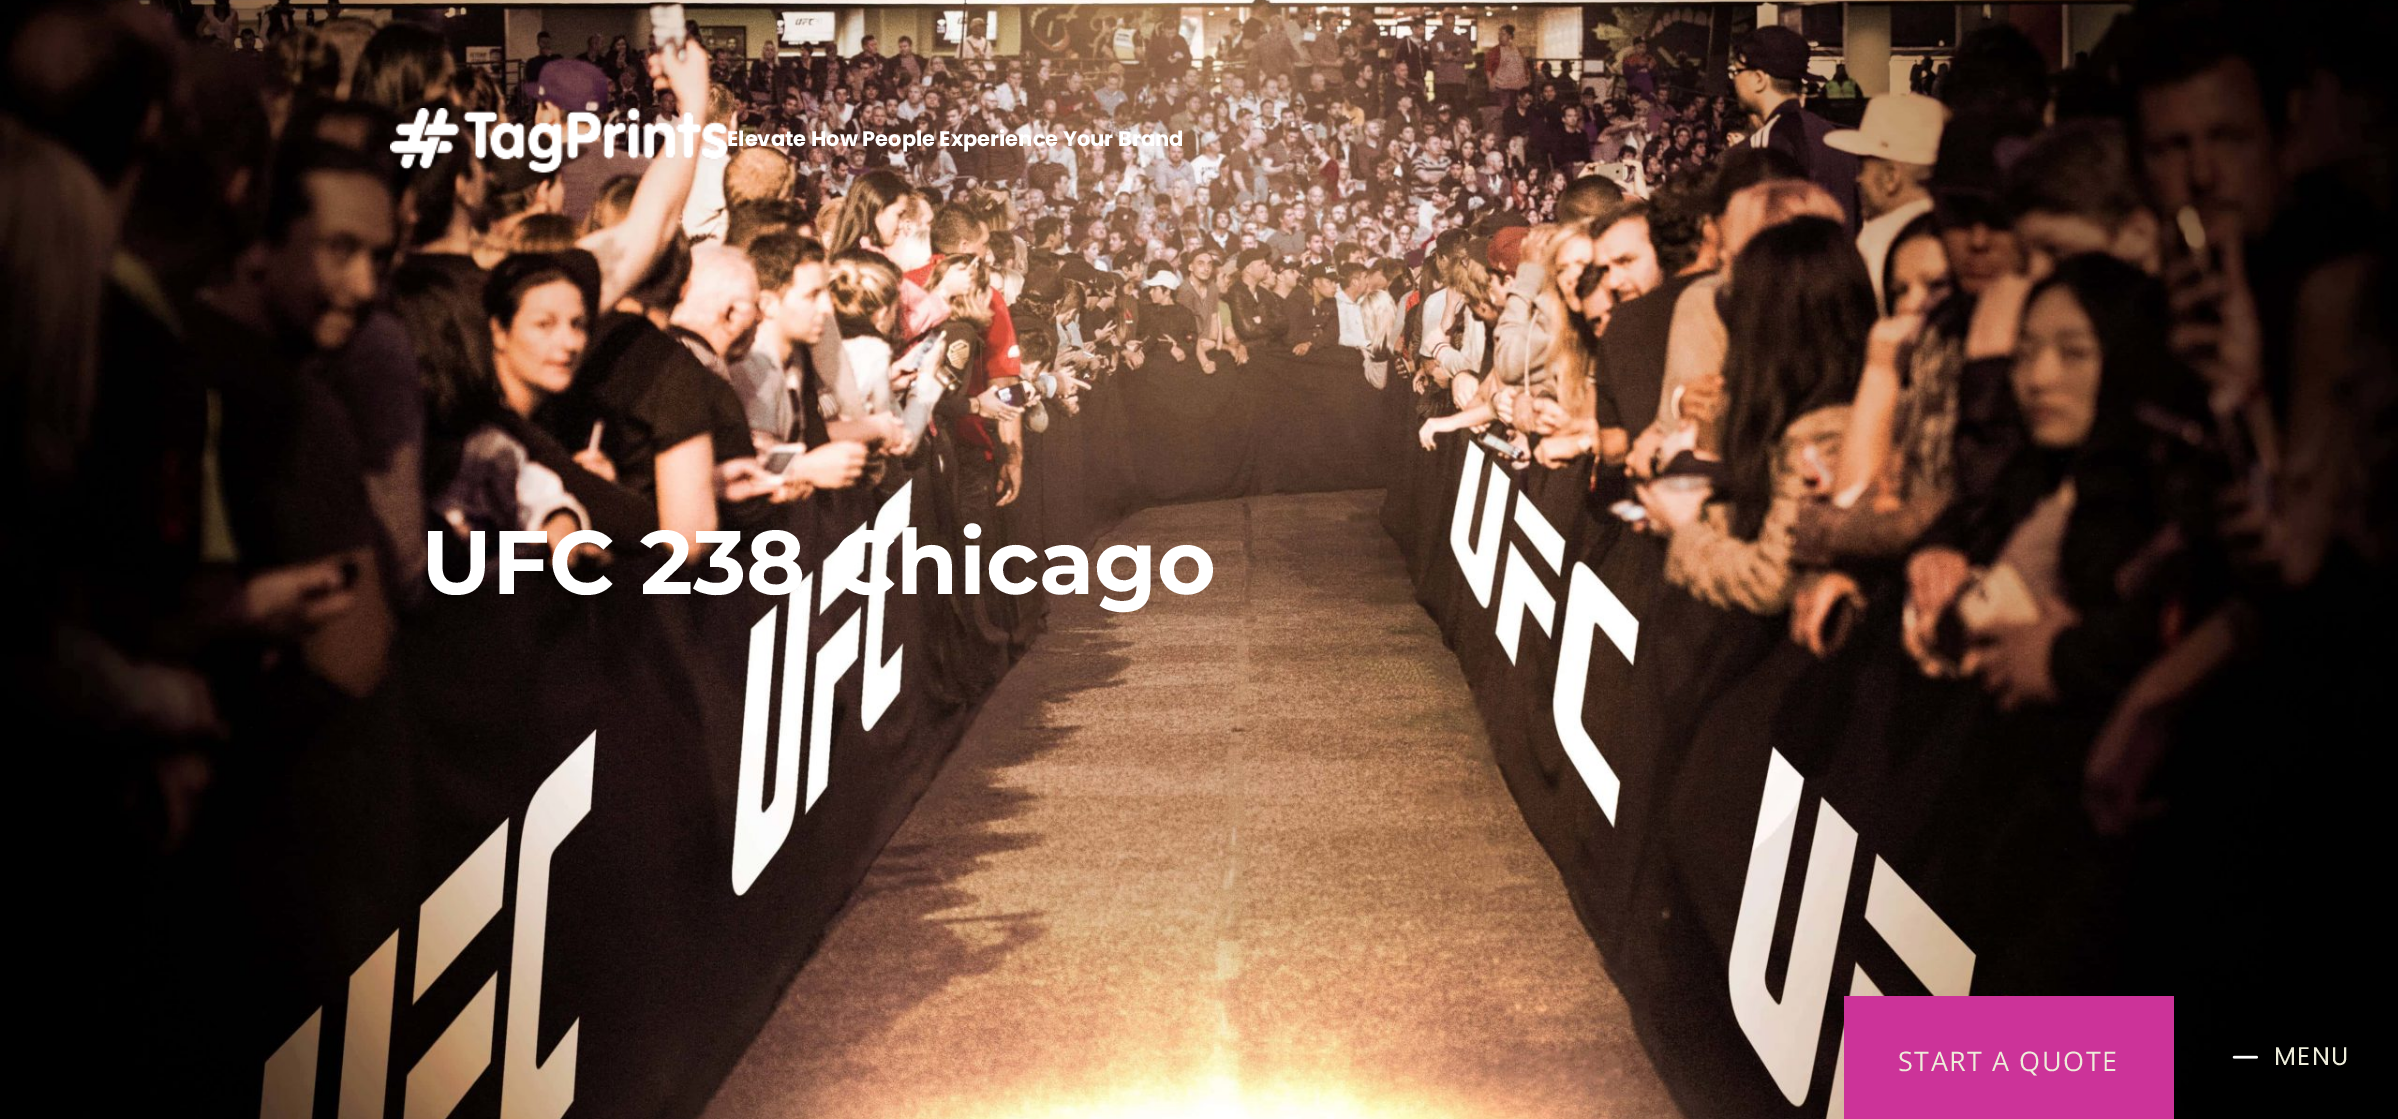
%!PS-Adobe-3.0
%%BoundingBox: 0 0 2398 1119
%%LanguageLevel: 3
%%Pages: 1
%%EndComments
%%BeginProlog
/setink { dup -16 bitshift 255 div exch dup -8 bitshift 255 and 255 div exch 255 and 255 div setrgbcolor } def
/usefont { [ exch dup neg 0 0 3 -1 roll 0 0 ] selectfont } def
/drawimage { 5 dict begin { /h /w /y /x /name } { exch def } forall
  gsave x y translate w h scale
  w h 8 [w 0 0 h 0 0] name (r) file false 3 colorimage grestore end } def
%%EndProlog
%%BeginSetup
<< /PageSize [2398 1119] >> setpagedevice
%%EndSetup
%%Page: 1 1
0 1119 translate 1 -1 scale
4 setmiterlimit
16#FFFFFF setink
0 0 2398 1119 rectfill
(img3.raw) 0 0 2398 1119 drawimage
(img1.raw) 390 108 338 65 drawimage
/Poppins-Bold 21 usefont
727 146 moveto (Elevate How People Experience Your Brand) show
16#CC3399 setink
1844 996 330 123 rectfill
/OpenSans-Regular 27 usefont
16#EEEDDA setink
1898 1071 moveto 1.5 0 (START A QUOTE) ashow
(img2.raw) 2232 1055 26 4 drawimage
/Poppins-Regular 25.5 usefont
2274 1065 moveto 1.5 0 (MENU) ashow
/Montserrat-Thin 90 usefont
16#FFFFFF setink
421 594 moveto (UFC 238 Chicago) show
showpage
%%EOF
